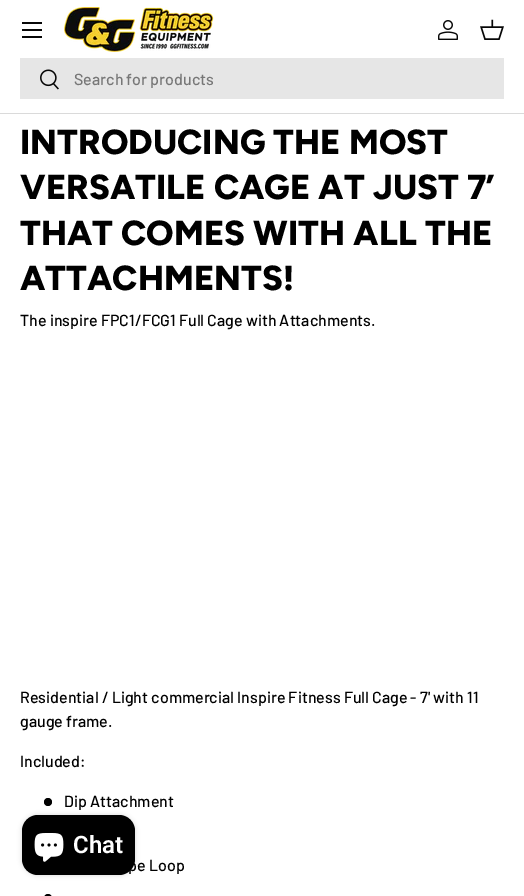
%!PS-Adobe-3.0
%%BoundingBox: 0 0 524 896
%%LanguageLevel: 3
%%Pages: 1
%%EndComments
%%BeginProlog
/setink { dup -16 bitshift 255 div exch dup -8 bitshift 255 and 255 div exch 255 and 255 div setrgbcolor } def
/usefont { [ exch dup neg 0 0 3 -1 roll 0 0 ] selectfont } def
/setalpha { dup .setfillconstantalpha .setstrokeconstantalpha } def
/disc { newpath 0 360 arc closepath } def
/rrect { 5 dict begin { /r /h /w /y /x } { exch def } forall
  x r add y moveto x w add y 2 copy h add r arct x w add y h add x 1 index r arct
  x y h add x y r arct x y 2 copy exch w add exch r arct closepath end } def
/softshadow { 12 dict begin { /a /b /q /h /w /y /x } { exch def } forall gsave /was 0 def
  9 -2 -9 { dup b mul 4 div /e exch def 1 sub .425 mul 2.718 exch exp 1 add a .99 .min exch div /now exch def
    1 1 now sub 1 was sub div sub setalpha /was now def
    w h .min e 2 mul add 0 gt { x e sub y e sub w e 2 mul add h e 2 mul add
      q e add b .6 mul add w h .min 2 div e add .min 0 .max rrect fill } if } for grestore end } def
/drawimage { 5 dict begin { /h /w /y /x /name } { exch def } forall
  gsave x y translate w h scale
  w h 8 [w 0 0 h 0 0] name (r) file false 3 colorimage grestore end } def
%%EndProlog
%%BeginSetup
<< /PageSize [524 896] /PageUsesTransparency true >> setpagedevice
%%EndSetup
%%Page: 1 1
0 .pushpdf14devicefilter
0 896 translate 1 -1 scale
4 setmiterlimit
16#FFFFFF setink
0 0 524 896 rectfill
[
    [0 113 524 1 16#DADADA]
    [22 22 20 2 16#070707]
    [22 36 20 2 16#070707]
    [22 29 20 2 16#070707]
] { aload pop setink rectfill } forall
(img1.raw) 64 7 150 45 drawimage
(img2.raw) 438 20 20 20 drawimage
(img3.raw) 480 19 24 21 drawimage
16#E6E6E6 setink
20 58 484 41 rectfill
(img4.raw) 40 69 19 21 drawimage
/Barlow-Medium 16 usefont
16#777777 setink
74 85 moveto (Search for products) show
/Figtree-ExtraBold 34.75 usefont
16#000000 setink
[
    [(INTRODUCING THE MOST) 20 154]
    [(VERSATILE CAGE AT JUST 7’) 20 199]
    [(THAT COMES WITH ALL THE) 20 245]
    [(ATTACHMENTS!) 20 290]
] { aload pop moveto show } forall
/Barlow-Medium 16 usefont
[
    [(The inspire FPC1/FCG1 Full Cage with Attachments.) 20 326]
    [(Residential / Light commercial Inspire Fitness Full Cage - 7' with 11) 20 703]
    [(gauge frame.) 20 727]
    [(Included:) 20 767]
] { aload pop moveto show } forall
48 802 4 disc fill
64 807 moveto (Dip Attachment) show
128 871 moveto (pe Loop) show
44 894 8 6 4 rrect fill
22 815 113 60 16 2.5 0.15 softshadow
22 815 113 60 16 rrect fill
(img5.raw) 34 833 30 29 drawimage
/Roboto-SemiBold 24 usefont
16#FFFFFF setink
73 853 moveto (Chat) show
.poppdf14devicefilter showpage
%%EOF
